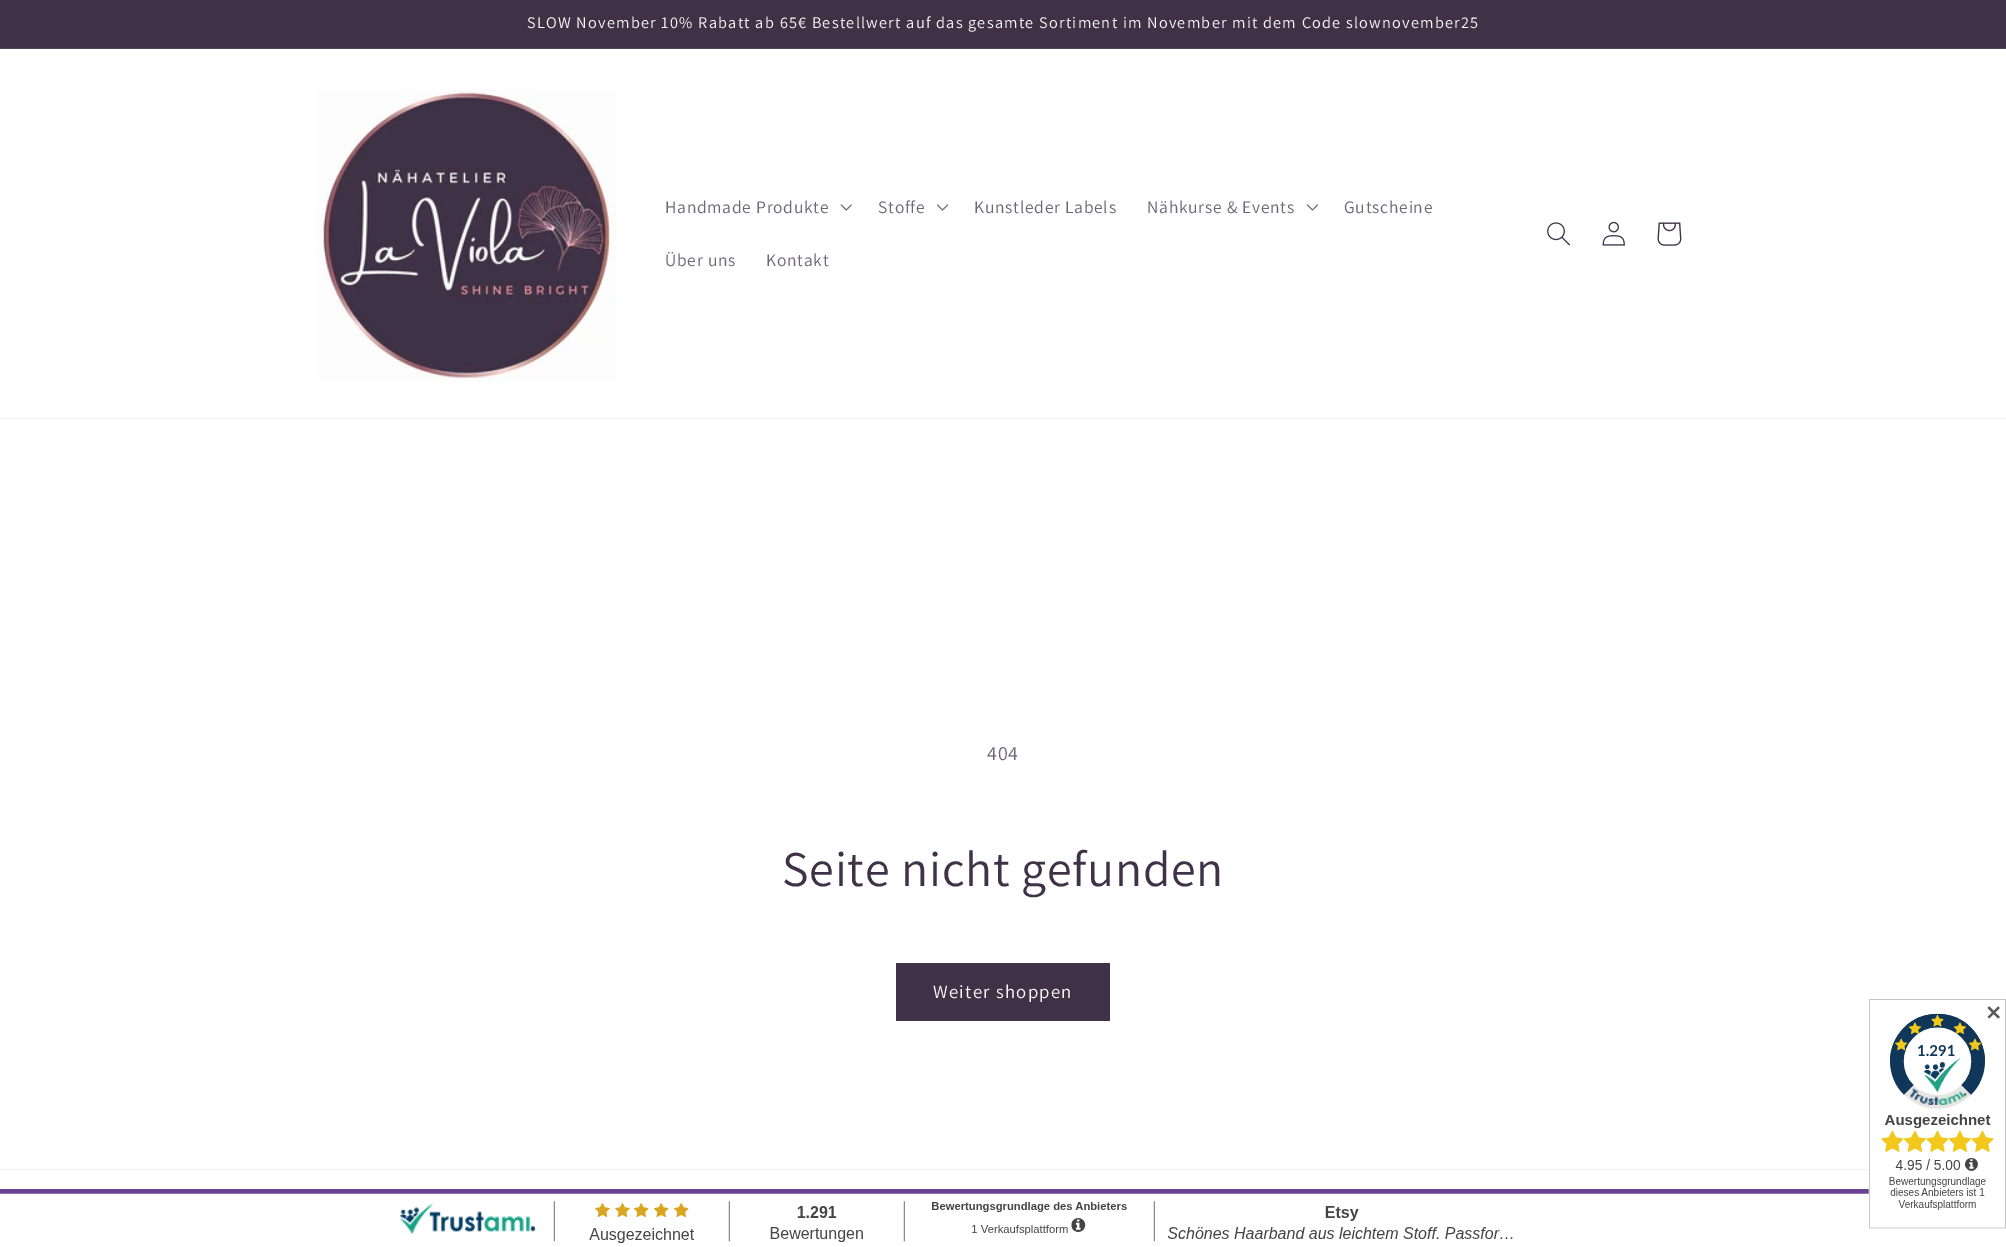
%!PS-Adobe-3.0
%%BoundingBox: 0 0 2006 1247
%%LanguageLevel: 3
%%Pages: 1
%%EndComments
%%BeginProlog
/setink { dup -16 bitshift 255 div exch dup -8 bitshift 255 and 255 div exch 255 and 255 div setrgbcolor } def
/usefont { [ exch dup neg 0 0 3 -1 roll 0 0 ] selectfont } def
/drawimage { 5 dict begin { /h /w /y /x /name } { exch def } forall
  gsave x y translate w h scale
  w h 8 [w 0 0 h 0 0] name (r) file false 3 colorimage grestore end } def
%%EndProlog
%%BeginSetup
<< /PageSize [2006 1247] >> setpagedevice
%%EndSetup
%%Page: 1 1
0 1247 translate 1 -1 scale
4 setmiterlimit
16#FFFFFF setink
0 0 2006 1247 rectfill
16#3F3247 setink
0 0 2006 48 rectfill
16#4E4256 setink
0 48 2006 1 rectfill
/Assistant-Regular 16.25 usefont
16#FFFAFA setink
527 28 moveto 1.25 0 (SLOW November 10% Rabatt ab 65€ Bestellwert auf das gesamte Sortiment im November mit dem Code slownovember25) ashow
16#F0EFF0 setink
0 418 2006 1 rectfill
(img1.raw) 316 89 300 293 drawimage
/Assistant-Regular 17.5 usefont
16#6F6575 setink
665 213 moveto 0.75 0 (Handmade Produkte) ashow
(img2.raw) 840 204 12 7 drawimage
878 213 moveto 0.75 0 (Stoffe) ashow
(img3.raw) 937 204 11 7 drawimage
974 213 moveto 0.75 0 (Kunstleder Labels) ashow
1147 213 moveto 0.75 0 (Nähkurse & Events) ashow
(img3.raw) 1307 204 11 7 drawimage
1344 213 moveto 0.75 0 (Gutscheine) ashow
665 266 moveto 0.75 0 (Über uns) ashow
766 266 moveto 0.75 0 (Kontakt) ashow
(img4.raw) 1547 222 23 24 drawimage
(img5.raw) 1602 221 23 25 drawimage
(img6.raw) 1657 222 25 24 drawimage
/Assistant-Regular 20 usefont
987 760 moveto 0.75 0 (404) ashow
/Assistant-Regular 50 usefont
16#3F3247 setink
782 886 moveto 0.75 0 (Seite nicht gefunden) ashow
896 963 214 58 rectfill
/Assistant-Regular 18.75 usefont
16#FFFAFA setink
933 998 moveto 1.25 0 (Weiter shoppen) ashow
16#F0EFF0 setink
0 1169 1869 1 rectfill
(img8.raw) 0 1189 2006 54 drawimage
(img7.raw) 1868 999 138 230 drawimage
/DejaVuSans-Bold 20 usefont
16#595959 setink
1985 1020 moveto 0.75 0 (✕) ashow
showpage
%%EOF
